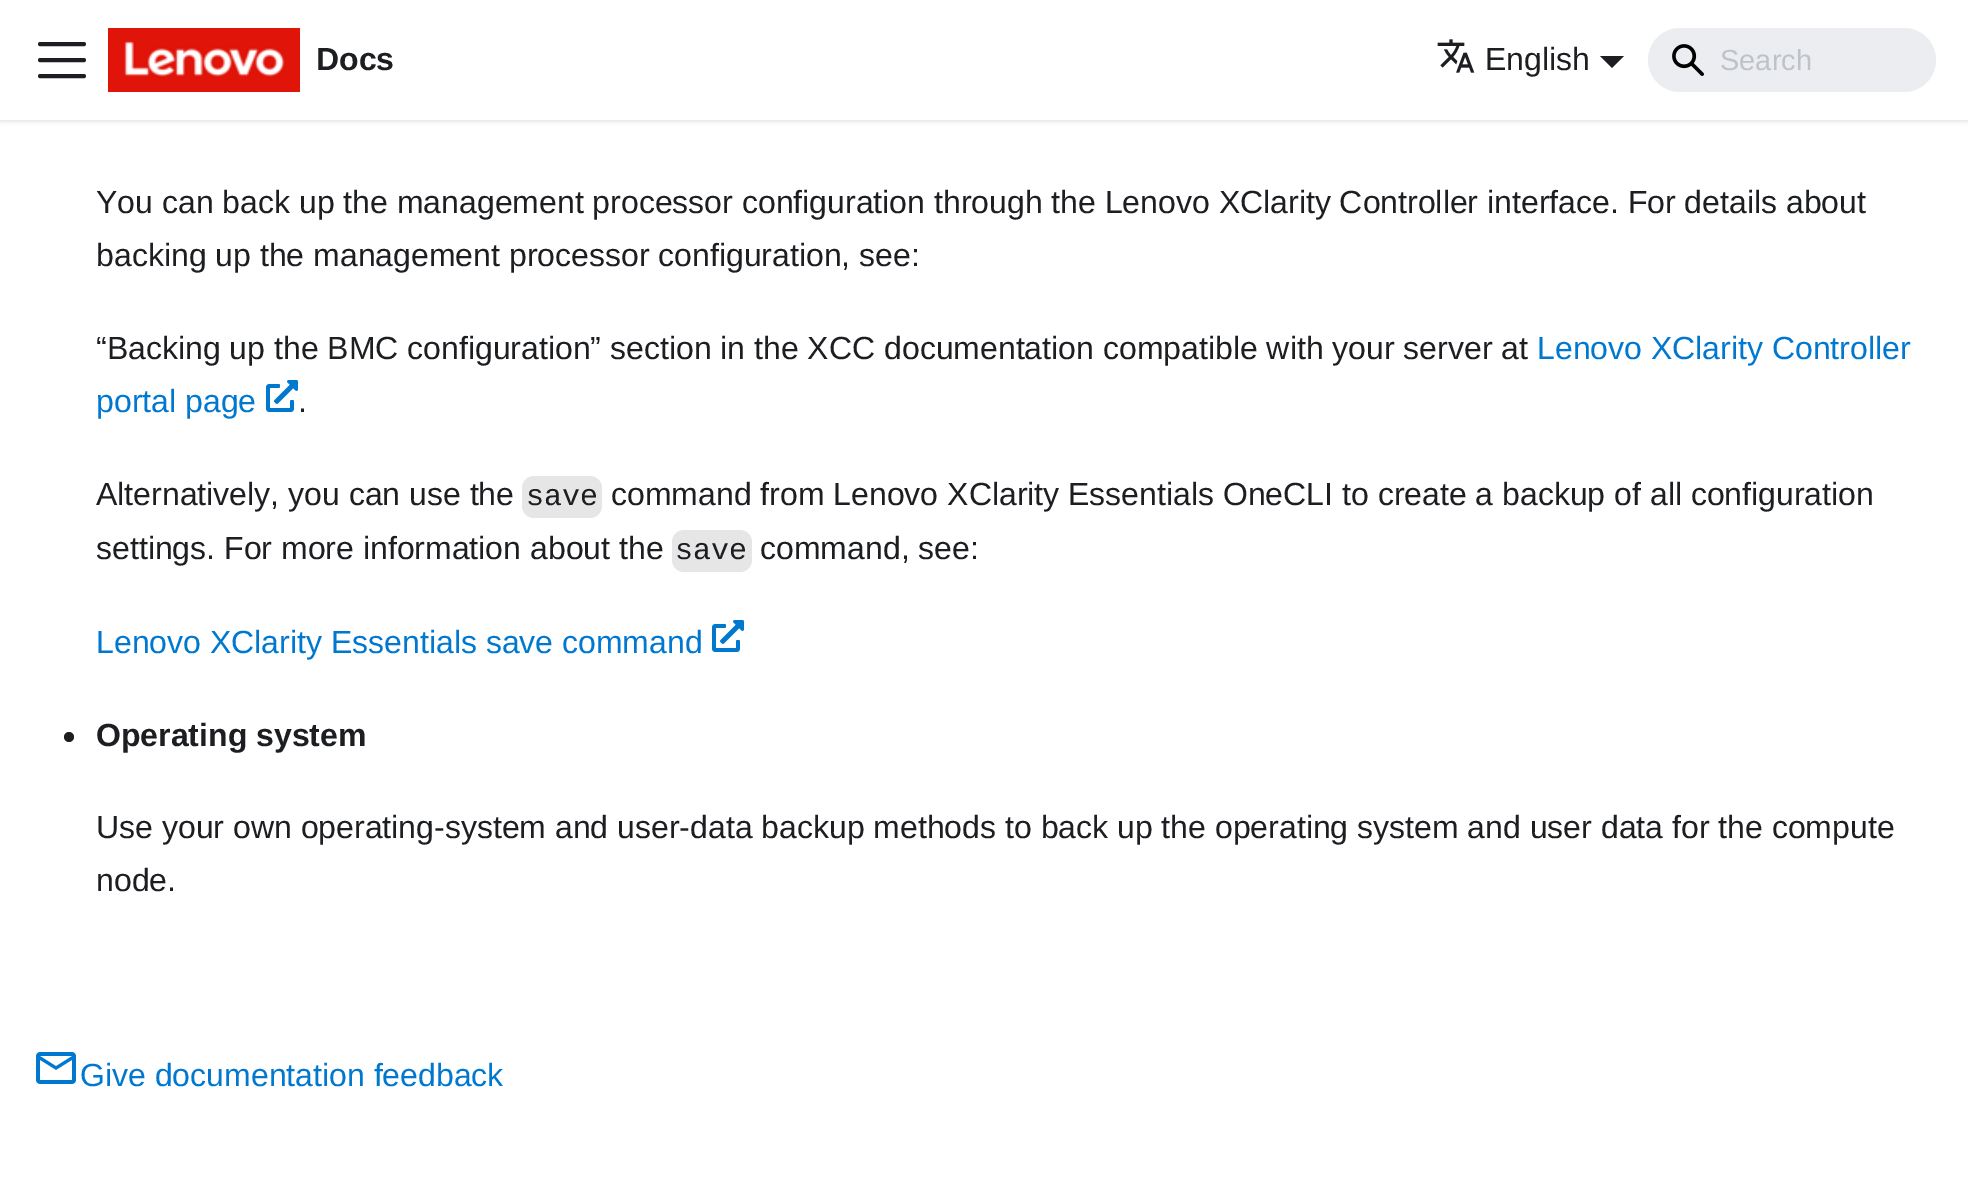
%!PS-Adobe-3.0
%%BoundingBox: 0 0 1968 1182
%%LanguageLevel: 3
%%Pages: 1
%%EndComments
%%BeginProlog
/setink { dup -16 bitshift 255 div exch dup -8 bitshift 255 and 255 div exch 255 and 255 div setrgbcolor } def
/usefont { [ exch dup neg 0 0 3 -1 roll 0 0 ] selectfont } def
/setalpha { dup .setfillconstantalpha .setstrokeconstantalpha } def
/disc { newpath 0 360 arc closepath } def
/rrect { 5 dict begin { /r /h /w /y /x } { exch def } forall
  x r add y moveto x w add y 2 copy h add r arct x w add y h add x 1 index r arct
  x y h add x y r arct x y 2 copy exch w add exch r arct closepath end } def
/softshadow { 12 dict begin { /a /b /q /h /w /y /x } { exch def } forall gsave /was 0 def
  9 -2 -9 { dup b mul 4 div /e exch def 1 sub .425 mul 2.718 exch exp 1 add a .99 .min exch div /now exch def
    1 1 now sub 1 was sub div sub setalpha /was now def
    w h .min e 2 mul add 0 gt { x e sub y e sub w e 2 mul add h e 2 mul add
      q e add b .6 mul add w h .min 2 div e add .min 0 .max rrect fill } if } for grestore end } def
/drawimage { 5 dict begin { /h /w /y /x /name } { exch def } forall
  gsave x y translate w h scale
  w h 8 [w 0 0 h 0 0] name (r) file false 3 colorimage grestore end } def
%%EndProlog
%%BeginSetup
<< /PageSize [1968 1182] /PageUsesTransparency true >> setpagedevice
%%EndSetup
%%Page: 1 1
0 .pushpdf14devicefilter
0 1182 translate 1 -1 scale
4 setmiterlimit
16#FFFFFF setink
0 0 1968 1182 rectfill
16#000000 setink
0 2 1968 120 0 2 0.1 softshadow
16#FFFFFF setink
0 0 1968 120 rectfill
16#1C1E21 setink
4 setlinewidth
1 setlinecap
40 44 moveto 84 44 lineto 40 60 moveto 84 60 lineto 40 76 moveto 84 76 lineto stroke
(img1.raw) 108 28 192 64 drawimage
/LiberationSans-Bold 32 usefont
316 70 moveto (Docs) show
(img2.raw) 1437 39 38 34 drawimage
/LiberationSans-Regular 32 usefont
1485 70 moveto (English) show
1600 56 moveto 1624 56 lineto 1612 68 lineto closepath fill
16#EBEDF0 setink
1648 28 288 64 32 rrect fill
(img3.raw) 1672 44 32 32 drawimage
/LiberationSans-Regular 29 usefont
16#BEC3C9 setink
1720 70 moveto (Search) show
/LiberationSans-Regular 32 usefont
16#1C1E21 setink
[
    [(You can back up the management processor configuration through the Lenovo XClarity Controller interface. For details about) 96 213]
    [(backing up the management processor configuration, see:) 96 266]
    [(“Backing up the BMC configuration” section in the XCC documentation compatible with your server at) 96 359]
] { aload pop moveto show } forall
16#0078D0 setink
1537 359 moveto (Lenovo XClarity Controller) show
96 412 moveto (portal page) show
(img4.raw) 266 380 32 32 drawimage
16#1C1E21 setink
298 412 moveto (.) show
96 505 moveto (Alternatively, you can use the) show
16#E6E6E6 setink
522 476 80 42 12 rrect fill
/LiberationMono-Regular 30 usefont
16#1C1E21 setink
526 505 moveto (save) show
/LiberationSans-Regular 32 usefont
611 505 moveto (command from Lenovo XClarity Essentials OneCLI to create a backup of all configuration) show
96 559 moveto (settings. For more information about the) show
16#E6E6E6 setink
672 530 80 42 12 rrect fill
/LiberationMono-Regular 30 usefont
16#1C1E21 setink
675 559 moveto (save) show
/LiberationSans-Regular 32 usefont
760 559 moveto (command, see:) show
16#0078D0 setink
96 653 moveto (Lenovo XClarity Essentials save command) show
(img4.raw) 712 620 32 32 drawimage
16#1C1E21 setink
69 737 5 disc fill
/LiberationSans-Bold 32 usefont
96 746 moveto (Operating system) show
/LiberationSans-Regular 32 usefont
96 838 moveto (Use your own operating-system and user-data backup methods to back up the operating system and user data for the compute) show
96 891 moveto (node.) show
(img5.raw) 36 1052 40 32 drawimage
16#0078D0 setink
80 1086 moveto (Give documentation feedback) show
.poppdf14devicefilter showpage
%%EOF
